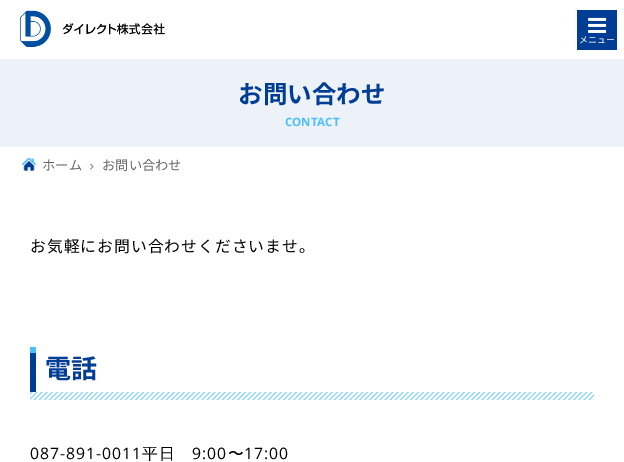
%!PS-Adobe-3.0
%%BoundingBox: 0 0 624 462
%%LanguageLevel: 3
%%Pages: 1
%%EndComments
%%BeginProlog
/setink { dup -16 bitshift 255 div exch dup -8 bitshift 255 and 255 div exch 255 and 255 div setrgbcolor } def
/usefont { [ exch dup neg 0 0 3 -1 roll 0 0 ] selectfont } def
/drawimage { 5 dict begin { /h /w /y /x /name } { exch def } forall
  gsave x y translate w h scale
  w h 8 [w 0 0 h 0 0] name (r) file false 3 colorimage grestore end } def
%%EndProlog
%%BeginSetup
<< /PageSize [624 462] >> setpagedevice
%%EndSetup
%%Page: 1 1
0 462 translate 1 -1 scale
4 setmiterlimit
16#FFFFFF setink
0 0 624 462 rectfill
(img1.raw) 20 10 145 37 drawimage
16#003E96 setink
577 10 40 40 rectfill
(img2.raw) 588 17 19 16 drawimage
/NotoSansJP-Regular 9 usefont
16#FFFFFF setink
579 43 moveto (メニュー) show
16#EDF1F8 setink
0 59 624 88 rectfill
/NotoSansJP-Bold 24.5 usefont
16#003E96 setink
238 103 moveto (お問い合わせ) show
/OpenSans-Bold 11.5 usefont
16#4AC0FB setink
285 126 moveto (CONTACT) show
(img3.raw) 22 158 14 13 drawimage
/NotoSansJP-Regular 13.25 usefont
16#666666 setink
42 170 moveto (ホーム) show
(img4.raw) 90 163 4 7 drawimage
102 170 moveto (お問い合わせ) show
/NotoSansJP-Regular 15.8 usefont
16#000000 setink
30 252 moveto 1 0 (お気軽にお問い合わせくださいませ。) ashow
(img5.raw) 30 392 564 8 drawimage
16#003E96 setink
30 347 6 45 rectfill
16#4AC0FB setink
30 347 6 6 rectfill
/NotoSansJP-Bold 26 usefont
16#003E96 setink
45 378 moveto (電話) show
/OpenSans-Regular 15.8 usefont
16#000000 setink
30 459 moveto 1 0 (087-891-0011) ashow
/WenQuanYiZenHei-Medium 15.8 usefont
142 459 moveto 1 0 (平日) ashow
/OpenSans-Regular 15.8 usefont
192 459 moveto 1 0 (9:00) ashow
/WenQuanYiZenHei-Medium 15.8 usefont
228 459 moveto 1 0 (〜) ashow
/OpenSans-Regular 15.8 usefont
244 459 moveto 1 0 (17:00) ashow
showpage
%%EOF
